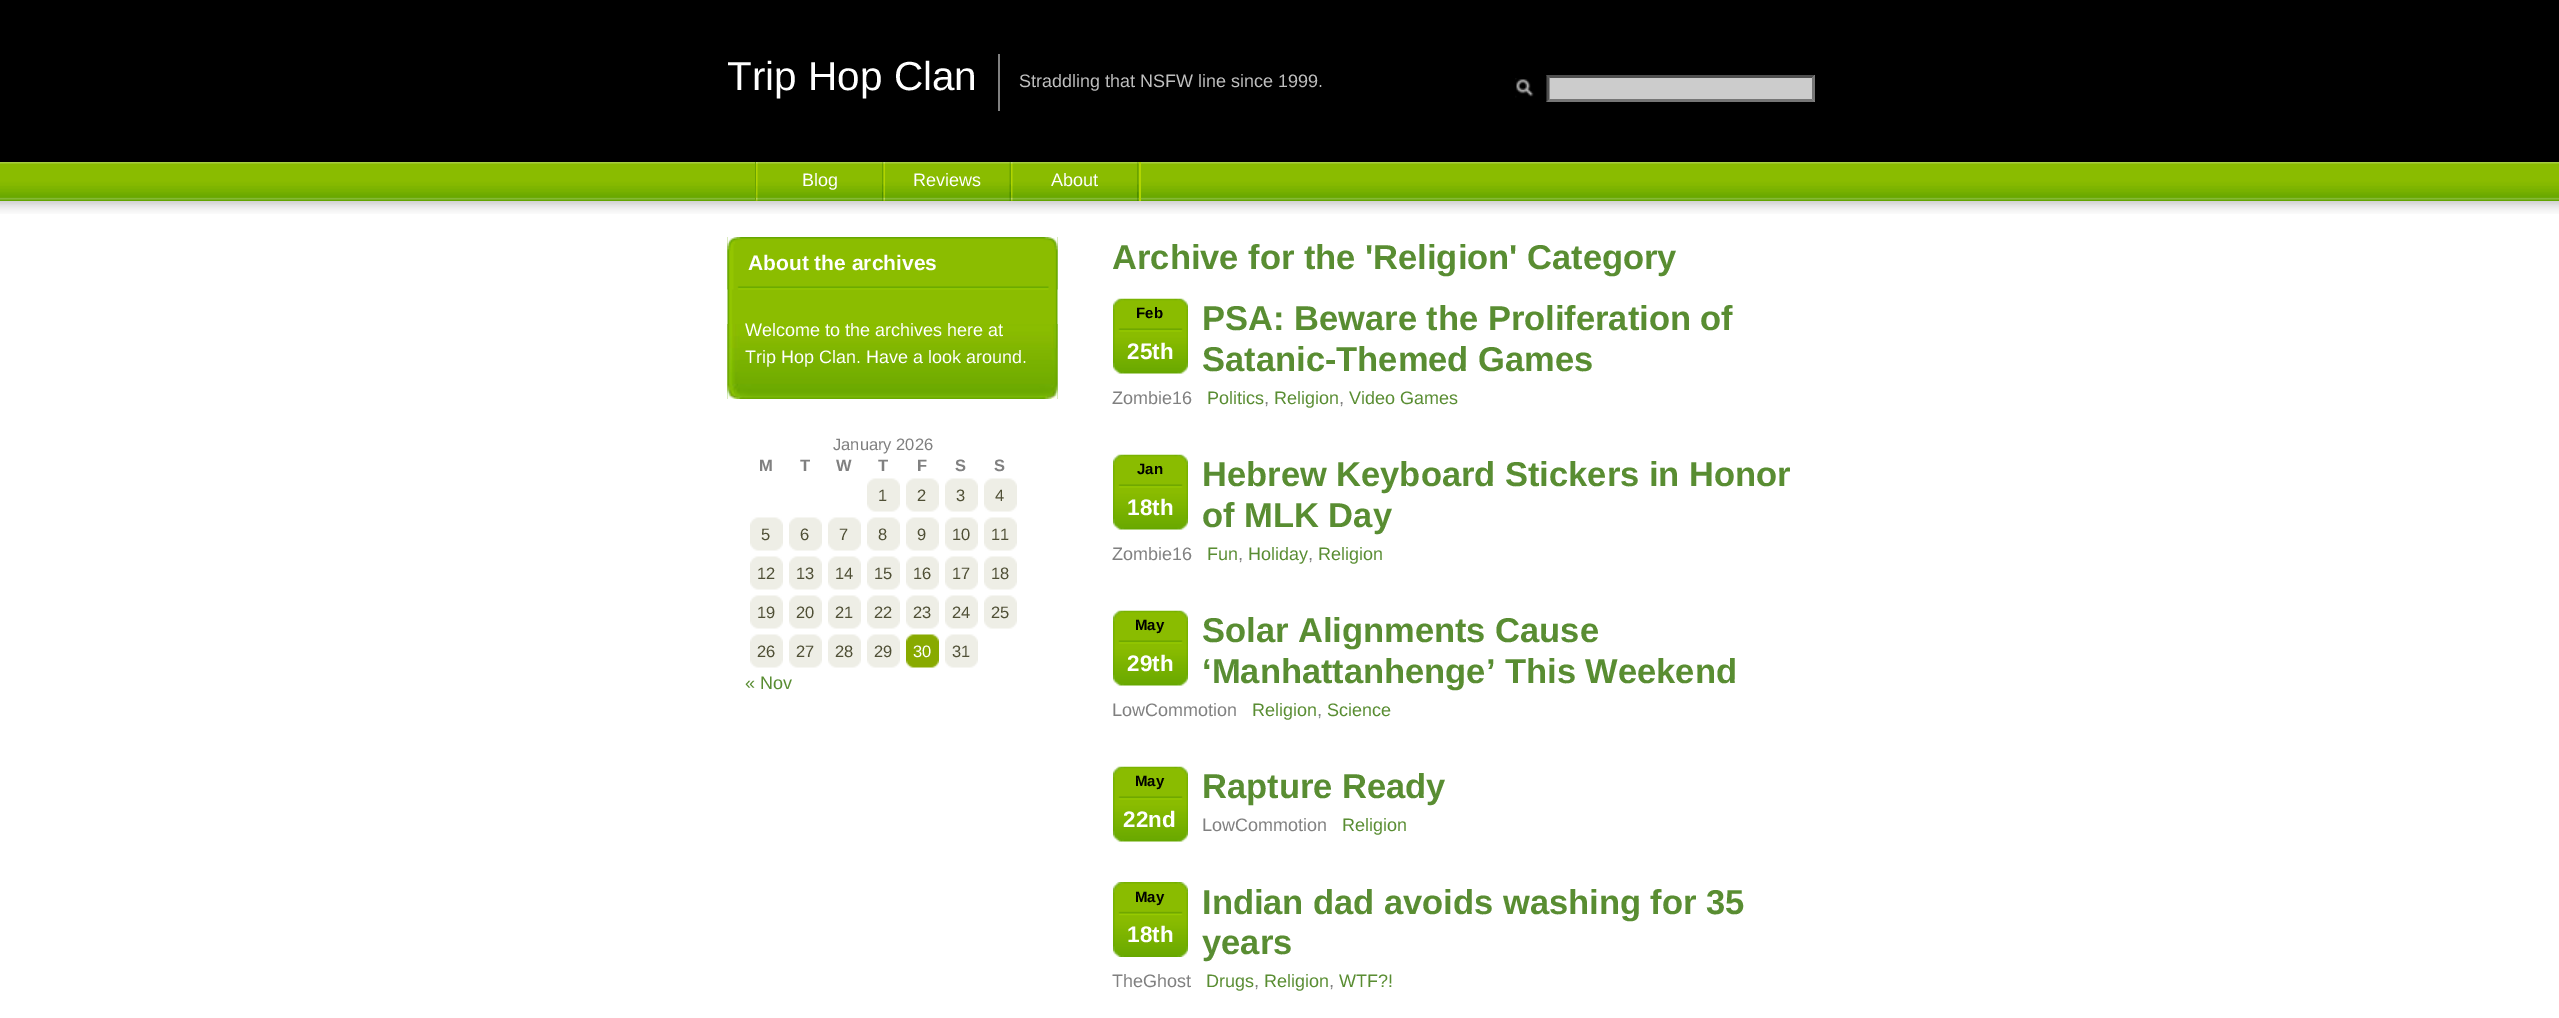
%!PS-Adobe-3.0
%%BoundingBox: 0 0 2559 1018
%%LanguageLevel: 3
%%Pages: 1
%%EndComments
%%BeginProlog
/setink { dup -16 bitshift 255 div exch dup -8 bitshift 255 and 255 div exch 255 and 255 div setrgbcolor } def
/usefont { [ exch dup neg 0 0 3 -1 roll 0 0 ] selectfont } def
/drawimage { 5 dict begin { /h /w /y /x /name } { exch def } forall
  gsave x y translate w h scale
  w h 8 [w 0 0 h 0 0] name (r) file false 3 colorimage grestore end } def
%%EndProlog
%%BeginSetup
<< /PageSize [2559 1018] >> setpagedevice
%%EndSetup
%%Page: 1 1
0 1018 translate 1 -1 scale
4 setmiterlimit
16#FFFFFF setink
0 0 2559 1018 rectfill
16#000000 setink
0 0 2559 162 rectfill
16#808080 setink
998 54 2 57 rectfill
/LiberationSans-Regular 40.5 usefont
16#FFFFFF setink
727 90 moveto (Trip Hop Clan) show
/LiberationSans-Regular 18 usefont
16#BFBFBF setink
1019 87 moveto (Straddling that NSFW line since 1999.) show
(img1.raw) 1515 78 19 20 drawimage
16#CCCCCC setink
1547 75 268 27 rectfill
16#4F4F4F setink
1546 75 moveto 1815 75 lineto 1812 78 lineto 1550 78 lineto closepath fill
16#767676 setink
1815 75 moveto 1815 102 lineto 1812 99 lineto 1812 78 lineto closepath fill
1815 102 moveto 1546 102 lineto 1550 99 lineto 1812 99 lineto closepath fill
16#4F4F4F setink
1546.5 102 moveto 1546.5 75 lineto 1549.5 78 lineto 1549.5 99 lineto closepath fill
(img2.raw) 0 162 2559 39 drawimage
16#B1D500 setink
1139 162 2 39 rectfill
16#6AA300 setink
755 162 1 39 rectfill
(img3.raw) 756 162 2 39 drawimage
(img4.raw) 882 162 2 39 drawimage
16#FFFFFF setink
802 186 moveto (Blog) show
(img5.raw) 883 162 2 39 drawimage
(img6.raw) 1009 162 2 39 drawimage
913 186 moveto (Reviews) show
(img3.raw) 1011 162 2 39 drawimage
(img4.raw) 1137 162 2 39 drawimage
1051 186 moveto (About) show
(img7.raw) 0 201 2559 13 drawimage
(img8.raw) 727 237 331 162 drawimage
(img9.raw) 727 237 331 53 drawimage
/LiberationSans-Bold 21 usefont
748 270 moveto (About the archives) show
(img10.raw) 727 324 331 75 drawimage
/LiberationSans-Regular 18 usefont
745 336 moveto (Welcome to the archives here at) show
745 363 moveto (Trip Hop Clan. Have a look around.) show
/LiberationSans-Bold 34.5 usefont
16#598D32 setink
1112 269 moveto (Archive for the 'Religion' Category) show
(img11.raw) 1113 298 75 76 drawimage
/LiberationSans-Bold 15 usefont
16#000000 setink
1136 318 moveto (Feb) show
/LiberationSans-Bold 22.5 usefont
16#FFFFFF setink
1127 359 moveto (25th) show
/LiberationSans-Bold 34.5 usefont
16#598D32 setink
1202 330 moveto (PSA: Beware the Proliferation of) show
1202 371 moveto (Satanic-Themed Games) show
/LiberationSans-Regular 18 usefont
16#808080 setink
1112 404 moveto (Zombie16) show
16#598D32 setink
1207 404 moveto (Politics) show
16#808080 setink
1264 404 moveto (,) show
16#598D32 setink
1274 404 moveto (Religion) show
16#808080 setink
1339 404 moveto (,) show
16#598D32 setink
1349 404 moveto (Video Games) show
(img11.raw) 1113 454 75 76 drawimage
/LiberationSans-Bold 15 usefont
16#000000 setink
1137 474 moveto (Jan) show
/LiberationSans-Bold 22.5 usefont
16#FFFFFF setink
1127 515 moveto (18th) show
/LiberationSans-Bold 34.5 usefont
16#598D32 setink
1202 486 moveto (Hebrew Keyboard Stickers in Honor) show
1202 527 moveto (of MLK Day) show
/LiberationSans-Regular 18 usefont
16#808080 setink
1112 560 moveto (Zombie16) show
16#598D32 setink
1207 560 moveto (Fun) show
16#808080 setink
1238 560 moveto (,) show
16#598D32 setink
1248 560 moveto (Holiday) show
16#808080 setink
1308 560 moveto (,) show
16#598D32 setink
1318 560 moveto (Religion) show
(img11.raw) 1113 610 75 76 drawimage
/LiberationSans-Bold 15 usefont
16#000000 setink
1135 630 moveto (May) show
/LiberationSans-Bold 22.5 usefont
16#FFFFFF setink
1127 671 moveto (29th) show
/LiberationSans-Bold 34.5 usefont
16#598D32 setink
1202 642 moveto (Solar Alignments Cause) show
1202 683 moveto (‘Manhattanhenge’ This Weekend) show
/LiberationSans-Regular 18 usefont
16#808080 setink
1112 716 moveto (LowCommotion) show
16#598D32 setink
1252 716 moveto (Religion) show
16#808080 setink
1317 716 moveto (,) show
16#598D32 setink
1327 716 moveto (Science) show
(img11.raw) 1113 766 75 76 drawimage
/LiberationSans-Bold 15 usefont
16#000000 setink
1135 786 moveto (May) show
/LiberationSans-Bold 22.5 usefont
16#FFFFFF setink
1123 827 moveto (22nd) show
/LiberationSans-Bold 34.5 usefont
16#598D32 setink
1202 798 moveto (Rapture Ready) show
/LiberationSans-Regular 18 usefont
16#808080 setink
1202 831 moveto (LowCommotion) show
16#598D32 setink
1342 831 moveto (Religion) show
(img12.raw) 1113 882 75 75 drawimage
/LiberationSans-Bold 15 usefont
16#000000 setink
1135 902 moveto (May) show
/LiberationSans-Bold 22.5 usefont
16#FFFFFF setink
1127 942 moveto (18th) show
/LiberationSans-Bold 34.5 usefont
16#598D32 setink
1202 914 moveto (Indian dad avoids washing for 35) show
1202 954 moveto (years) show
/LiberationSans-Regular 18 usefont
16#808080 setink
1112 987 moveto (TheGhost) show
16#598D32 setink
[
    [(Drugs) 1206 987]
    [(Religion) 1264 987]
    [(WTF?!) 1339 987]
] { aload pop moveto show } forall
16#808080 setink
1254 987 moveto (,) show
1329 987 moveto (,) show
/LiberationSans-Regular 16.5 usefont
833 450 moveto (January 2026) show
/LiberationSans-Bold 16.5 usefont
[
    [(M) 759 471]
    [(T) 800 471]
    [(W) 836 471]
    [(T) 878 471]
    [(F) 917 471]
    [(S) 955 471]
    [(S) 994 471]
] { aload pop moveto show } forall
(img13.raw) 867 478 33 34 drawimage
/LiberationSans-Regular 16.5 usefont
16#4F4F35 setink
878 501 moveto (1) show
(img13.raw) 906 478 33 34 drawimage
917 501 moveto (2) show
(img13.raw) 945 478 33 34 drawimage
956 501 moveto (3) show
(img13.raw) 984 478 33 34 drawimage
995 501 moveto (4) show
(img14.raw) 750 517 33 34 drawimage
761 540 moveto (5) show
(img13.raw) 789 517 33 34 drawimage
800 540 moveto (6) show
(img13.raw) 828 517 33 34 drawimage
839 540 moveto (7) show
(img13.raw) 867 517 33 34 drawimage
878 540 moveto (8) show
(img13.raw) 906 517 33 34 drawimage
917 540 moveto (9) show
(img13.raw) 945 517 33 34 drawimage
952 540 moveto (10) show
(img13.raw) 984 517 33 34 drawimage
991 540 moveto (11) show
(img14.raw) 750 556 33 34 drawimage
757 579 moveto (12) show
(img13.raw) 789 556 33 34 drawimage
796 579 moveto (13) show
(img13.raw) 828 556 33 34 drawimage
835 579 moveto (14) show
(img13.raw) 867 556 33 34 drawimage
874 579 moveto (15) show
(img13.raw) 906 556 33 34 drawimage
913 579 moveto (16) show
(img13.raw) 945 556 33 34 drawimage
952 579 moveto (17) show
(img13.raw) 984 556 33 34 drawimage
991 579 moveto (18) show
(img14.raw) 750 595 33 34 drawimage
757 618 moveto (19) show
(img13.raw) 789 595 33 34 drawimage
796 618 moveto (20) show
(img13.raw) 828 595 33 34 drawimage
835 618 moveto (21) show
(img13.raw) 867 595 33 34 drawimage
874 618 moveto (22) show
(img13.raw) 906 595 33 34 drawimage
913 618 moveto (23) show
(img13.raw) 945 595 33 34 drawimage
952 618 moveto (24) show
(img13.raw) 984 595 33 34 drawimage
991 618 moveto (25) show
(img14.raw) 750 634 33 34 drawimage
757 657 moveto (26) show
(img13.raw) 789 634 33 34 drawimage
796 657 moveto (27) show
(img13.raw) 828 634 33 34 drawimage
835 657 moveto (28) show
(img13.raw) 867 634 33 34 drawimage
874 657 moveto (29) show
(img15.raw) 906 634 33 34 drawimage
16#FFFFFF setink
913 657 moveto (30) show
(img13.raw) 945 634 33 34 drawimage
16#4F4F35 setink
952 657 moveto (31) show
/LiberationSans-Regular 18 usefont
16#598D32 setink
745 689 moveto (« Nov) show
showpage
%%EOF
